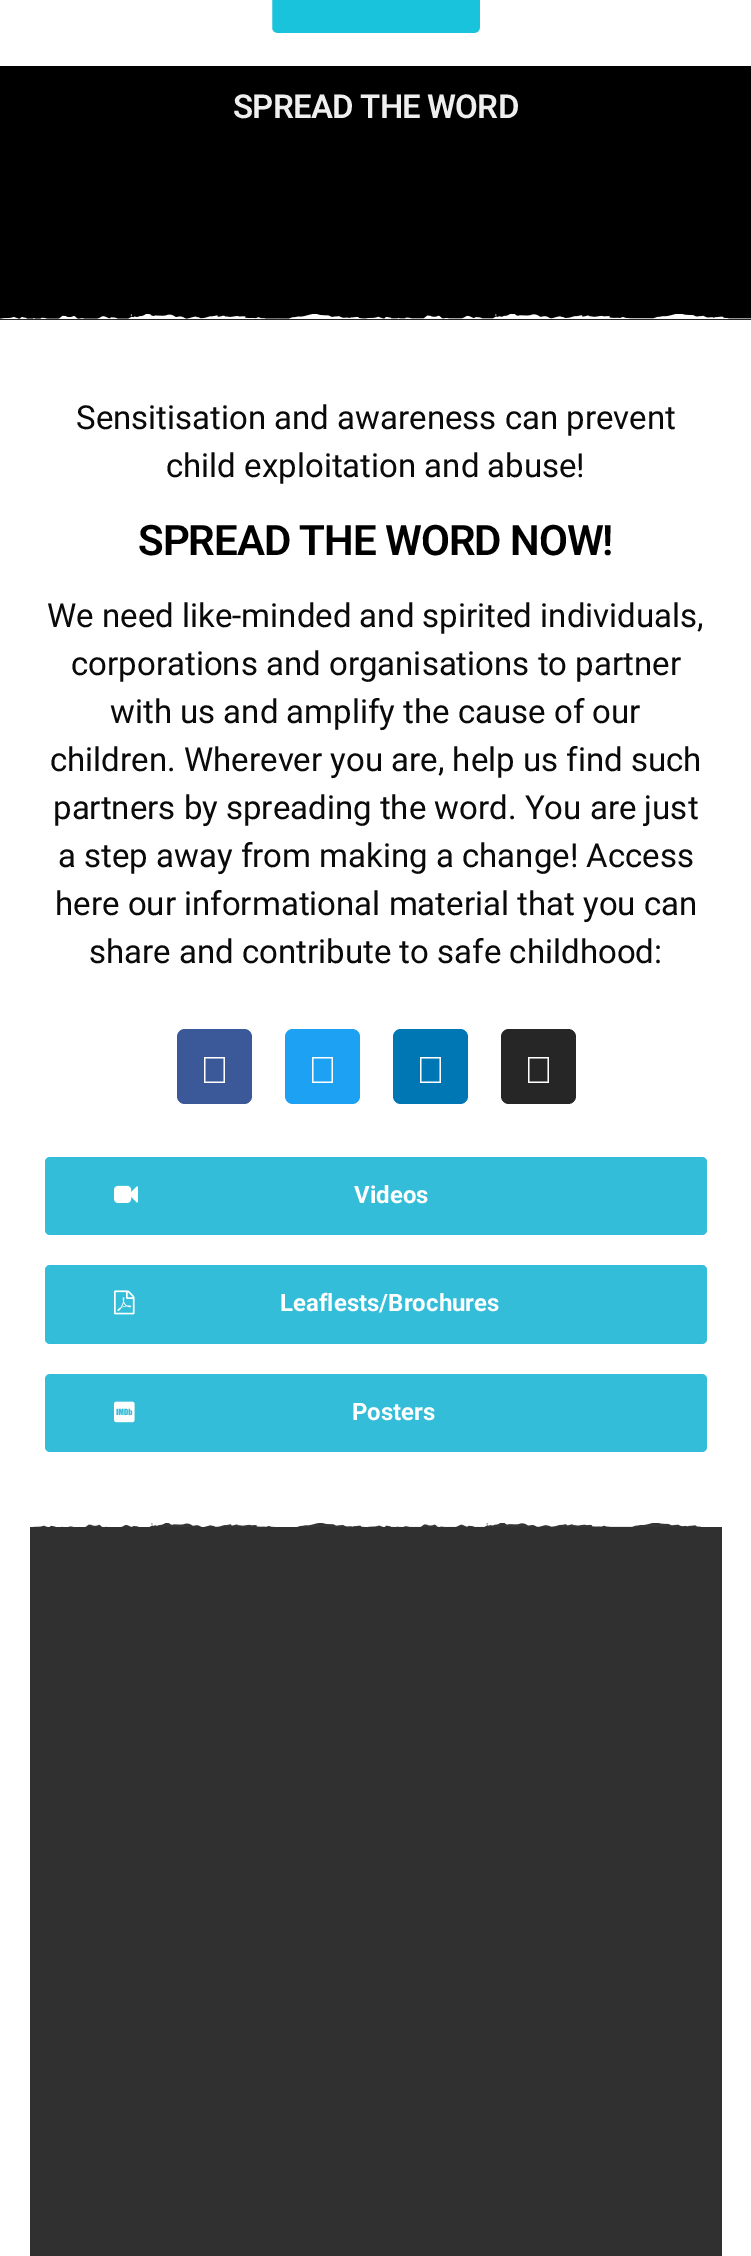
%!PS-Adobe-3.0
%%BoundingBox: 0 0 751 2256
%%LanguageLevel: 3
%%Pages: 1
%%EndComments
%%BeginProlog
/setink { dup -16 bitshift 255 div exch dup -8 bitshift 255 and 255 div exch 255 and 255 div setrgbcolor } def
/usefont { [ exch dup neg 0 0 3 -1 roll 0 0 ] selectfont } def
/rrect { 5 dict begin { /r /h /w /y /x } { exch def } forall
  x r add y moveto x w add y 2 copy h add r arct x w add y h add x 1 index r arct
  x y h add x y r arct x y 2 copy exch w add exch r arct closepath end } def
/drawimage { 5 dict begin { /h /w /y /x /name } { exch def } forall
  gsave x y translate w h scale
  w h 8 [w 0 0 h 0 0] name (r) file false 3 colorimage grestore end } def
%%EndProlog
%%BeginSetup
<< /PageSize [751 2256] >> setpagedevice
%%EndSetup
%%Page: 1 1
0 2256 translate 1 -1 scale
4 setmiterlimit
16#FFFFFF setink
0 0 751 2256 rectfill
16#19C3DC setink
270.5 -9.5 211 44 6.5 rrect gsave fill grestore
16#FFFFFF setink
3 setlinewidth
stroke
16#000000 setink
0 66 751 254 rectfill
/Roboto-SemiBold 33 usefont
16#EFEFEF setink
233 118 moveto -0.8 0 (SPREAD THE WORD) ashow
(img1.raw) 0 314 751 6 drawimage
/Roboto-Regular 33 usefont
16#0A0A0A setink
76 429 moveto (Sensitisation and awareness can prevent) show
166 477 moveto (child exploitation and abuse!) show
/Roboto-SemiBold 42 usefont
16#000000 setink
138 555 moveto -1.05 0 (SPREAD THE WORD NOW!) ashow
/Roboto-Regular 33 usefont
16#0A0A0A setink
[
    [(We need like-minded and spirited individuals,) 47 627]
    [(corporations and organisations to partner) 71 675]
    [(with us and amplify the cause of our) 110 723]
    [(children. Wherever you are, help us find such) 50 771]
    [(partners by spreading the word. You are just) 53 819]
    [(a step away from making a change! Access) 58 867]
    [(here our informational material that you can) 55 915]
    [(share and contribute to safe childhood:) 89 963]
] { aload pop moveto show } forall
16#3B5998 setink
177 1029 75 75 8 rrect fill
16#FFFFFF setink
204 1057 moveto 225 1057 lineto 225 1083 lineto 204 1083 lineto closepath 205.5 1058.5 moveto 205.5 1081.5 lineto 223.5 1081.5 lineto 223.5 1058.5 lineto closepath fill
16#1DA1F2 setink
285 1029 75 75 8 rrect fill
16#FFFFFF setink
312 1057 moveto 333 1057 lineto 333 1083 lineto 312 1083 lineto closepath 313.5 1058.5 moveto 313.5 1081.5 lineto 331.5 1081.5 lineto 331.5 1058.5 lineto closepath fill
16#0077B5 setink
393 1029 75 75 8 rrect fill
16#FFFFFF setink
420 1057 moveto 441 1057 lineto 441 1083 lineto 420 1083 lineto closepath 421.5 1058.5 moveto 421.5 1081.5 lineto 439.5 1081.5 lineto 439.5 1058.5 lineto closepath fill
16#262626 setink
501 1029 75 75 8 rrect fill
16#FFFFFF setink
528 1057 moveto 549 1057 lineto 549 1083 lineto 528 1083 lineto closepath 529.5 1058.5 moveto 529.5 1081.5 lineto 547.5 1081.5 lineto 547.5 1058.5 lineto closepath fill
16#33BDD8 setink
45 1157 662 78 5 rrect fill
(img2.raw) 114 1185 24 18 drawimage
/Roboto-Bold 24 usefont
16#FFFFFF setink
354 1203 moveto (Videos) show
16#33BDD8 setink
45 1265 662 79 5 rrect fill
(img3.raw) 114 1290 21 25 drawimage
16#FFFFFF setink
280 1311 moveto (Leaflests/Brochures) show
16#33BDD8 setink
45 1374 662 78 5 rrect fill
(img4.raw) 114 1401 21 22 drawimage
16#FFFFFF setink
352 1420 moveto (Posters) show
16#303030 setink
30 1527 692 729 rectfill
(img5.raw) 33 1523 669 4 drawimage
showpage
%%EOF
